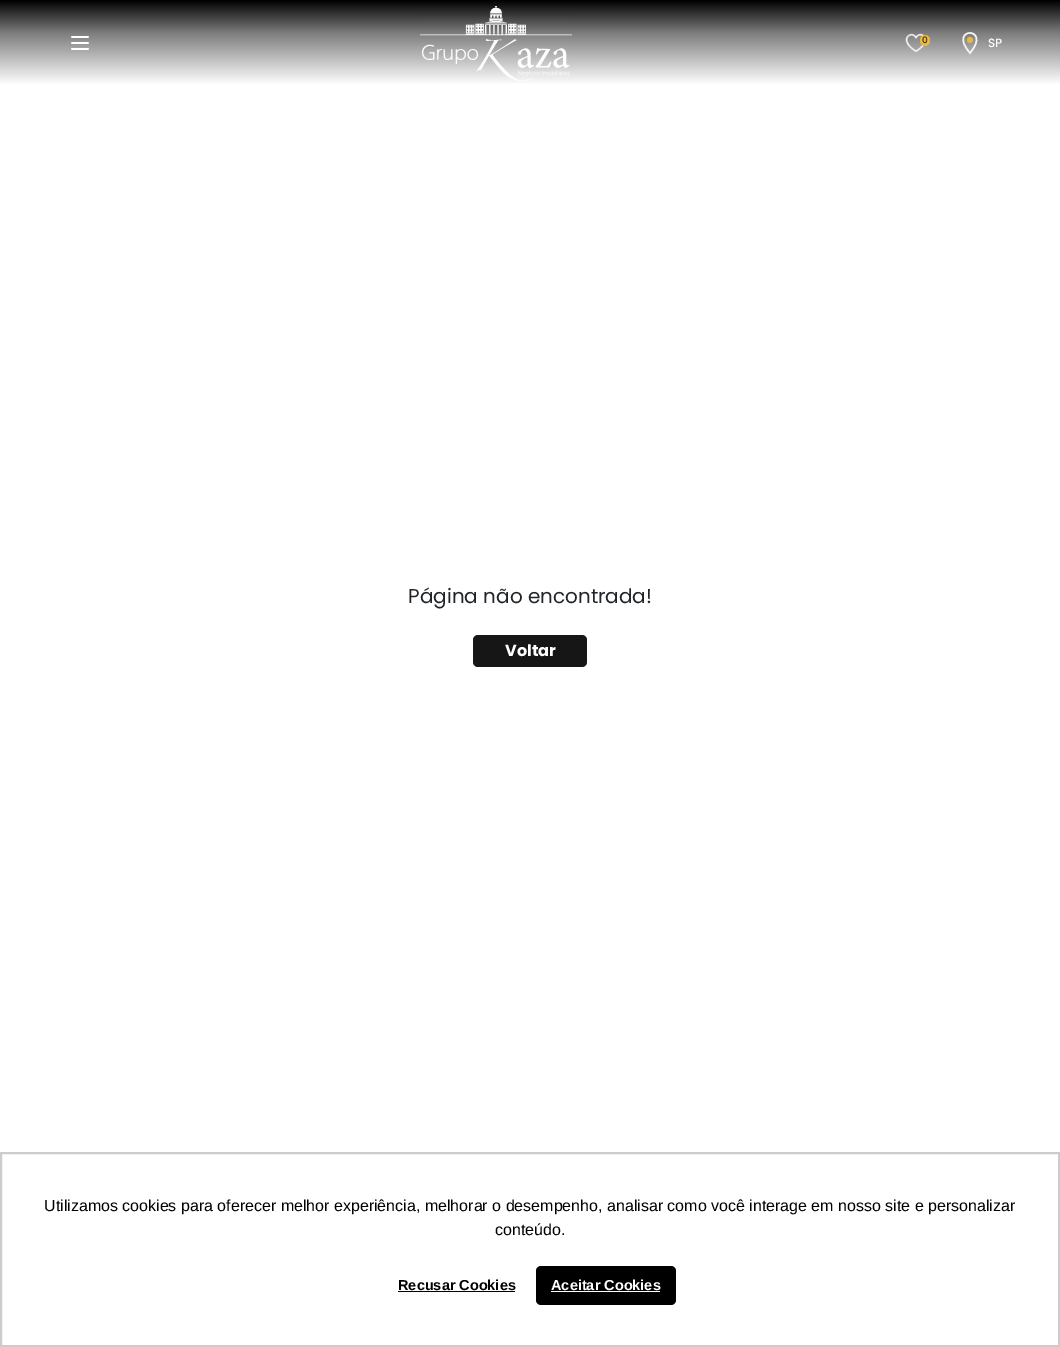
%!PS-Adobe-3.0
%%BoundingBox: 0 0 1060 1347
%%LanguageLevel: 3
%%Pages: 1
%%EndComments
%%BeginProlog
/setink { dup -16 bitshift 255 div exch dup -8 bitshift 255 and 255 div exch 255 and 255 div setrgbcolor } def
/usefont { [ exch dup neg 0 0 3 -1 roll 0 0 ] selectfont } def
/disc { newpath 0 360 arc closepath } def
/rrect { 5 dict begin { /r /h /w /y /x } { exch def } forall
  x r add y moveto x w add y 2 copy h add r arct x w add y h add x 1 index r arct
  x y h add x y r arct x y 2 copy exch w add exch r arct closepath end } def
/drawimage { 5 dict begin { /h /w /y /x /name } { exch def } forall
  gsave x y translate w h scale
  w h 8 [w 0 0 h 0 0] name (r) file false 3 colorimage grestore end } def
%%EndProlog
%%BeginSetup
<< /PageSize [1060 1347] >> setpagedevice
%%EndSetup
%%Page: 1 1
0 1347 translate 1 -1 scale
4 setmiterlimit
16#FFFFFF setink
0 0 1060 1347 rectfill
gsave 0 0 moveto 1060 0 lineto 1060 84 lineto 0 84 lineto closepath clip newpath
<< /ShadingType 2 /ColorSpace /DeviceRGB /Coords [530 0 530 85] /Extend [true true] /Function << /FunctionType 3 /Domain [0 1] /Functions [<< /FunctionType 2 /Domain [0 1] /C0 [0 0 0] /C1 [0.502 0.502 0.502] /N 1 >> << /FunctionType 2 /Domain [0 1] /C0 [0.502 0.502 0.502] /C1 [1 1 1] /N 1 >>] /Bounds [0.4] /Encode [0 1 0 1] >> >> shfill grestore
(img1.raw) 71 36 18 14 drawimage
(img2.raw) 420 6 152 75 drawimage
(img3.raw) 905 33 20 19 drawimage
16#EAB83D setink
920 35 10 11 5 rrect fill
/Poppins-Medium 9 usefont
16#323232 setink
922 43 moveto (0) show
16#F5F5F5 setink
1.5 setlinewidth
970 53 moveto 993 26 946.5 26.5 970 53 curveto closepath stroke
16#EAB83D setink
970 40 3 disc fill
/Poppins-Medium 12 usefont
16#FFFFFF setink
988 47 moveto (SP) show
/Poppins-Regular 20 usefont
16#212529 setink
408 603 moveto (Página não encontrada!) show
16#161616 setink
473 635 114 32 5 rrect fill
/Poppins-Bold 16 usefont
16#FFFFFF setink
505 656 moveto (Voltar) show
16#CCCCCC setink
2 setlinewidth
1 1153 1058 193 rectstroke
/LiberationSans-Regular 16 usefont
16#000000 setink
44 1211 moveto (Utilizamos cookies para oferecer melhor experiência, melhorar o desempenho, analisar como você interage em nosso site e personalizar) show
495 1235 moveto (conteúdo.) show
/LiberationSans-Bold 14.5 usefont
398 1290 moveto (Recusar Cookies) show
398 1291 117 1 rectfill
536 1266 140 39 5 rrect fill
16#FFFFFF setink
551 1290 moveto (Aceitar Cookies) show
551 1291 109 1 rectfill
showpage
%%EOF
